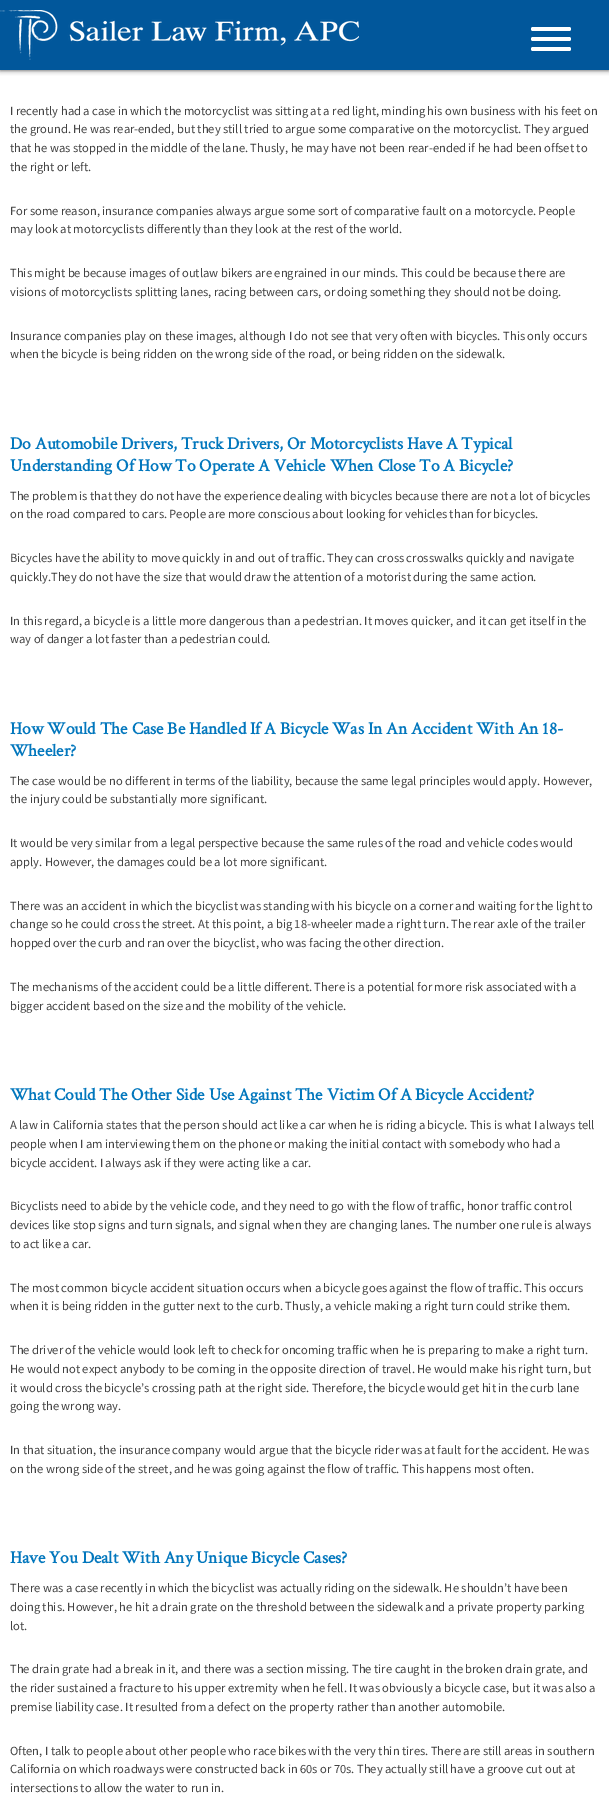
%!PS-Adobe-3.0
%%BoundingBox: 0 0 609 1802
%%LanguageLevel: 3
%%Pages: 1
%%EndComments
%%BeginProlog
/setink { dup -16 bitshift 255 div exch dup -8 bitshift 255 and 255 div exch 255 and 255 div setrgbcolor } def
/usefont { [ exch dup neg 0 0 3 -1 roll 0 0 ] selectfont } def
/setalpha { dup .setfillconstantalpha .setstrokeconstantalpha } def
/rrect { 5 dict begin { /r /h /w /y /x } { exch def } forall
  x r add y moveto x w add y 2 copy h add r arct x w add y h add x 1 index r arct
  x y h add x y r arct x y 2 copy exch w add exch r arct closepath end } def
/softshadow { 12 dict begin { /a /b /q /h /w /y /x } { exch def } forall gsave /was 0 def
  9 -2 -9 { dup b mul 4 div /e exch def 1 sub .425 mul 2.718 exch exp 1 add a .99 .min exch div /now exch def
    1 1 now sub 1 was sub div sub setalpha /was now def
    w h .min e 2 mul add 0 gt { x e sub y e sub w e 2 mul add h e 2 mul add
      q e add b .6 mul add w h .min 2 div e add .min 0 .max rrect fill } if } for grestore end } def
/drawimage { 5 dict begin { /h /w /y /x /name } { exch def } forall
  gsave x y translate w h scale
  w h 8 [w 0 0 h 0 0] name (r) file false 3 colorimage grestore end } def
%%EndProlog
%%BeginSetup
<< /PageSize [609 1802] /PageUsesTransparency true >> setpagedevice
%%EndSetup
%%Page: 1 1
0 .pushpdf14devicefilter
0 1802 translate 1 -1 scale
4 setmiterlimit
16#FFFFFF setink
0 0 609 1802 rectfill
16#424242 setink
0 0 609 70 0 2.5 1 softshadow
16#01579B setink
0 0 609 70 rectfill
16#FFFFFF setink
531 37 40 4 2 rrect fill
531 27 40 4 2 rrect fill
531 47 40 4 2 rrect fill
(img1.raw) 0 10 359 50 drawimage
/SourceSansPro-Regular 12.5 usefont
16#424242 setink
[
    [(I recently had a case in which the motorcyclist was sitting at a red light, minding his own business with his feet on) 10 115]
    [(the ground. He was rear-ended, but they still tried to argue some comparative on the motorcyclist. They argued) 10 133]
    [(that he was stopped in the middle of the lane. Thusly, he may have not been rear-ended if he had been offset to) 10 152]
    [(the right or left.) 10 171]
    [(For some reason, insurance companies always argue some sort of comparative fault on a motorcycle. People) 10 215]
    [(may look at motorcyclists differently than they look at the rest of the world.) 10 233]
    [(This might be because images of outlaw bikers are engrained in our minds. This could be because there are) 10 277]
    [(visions of motorcyclists splitting lanes, racing between cars, or doing something they should not be doing.) 10 296]
    [(Insurance companies play on these images, although I do not see that very often with bicycles. This only occurs) 10 340]
    [(when the bicycle is being ridden on the wrong side of the road, or being ridden on the sidewalk.) 10 358]
] { aload pop moveto show } forall
/CrimsonText-Bold 17.5 usefont
16#0277BD setink
10 449 moveto (Do Automobile Drivers, Truck Drivers, Or Motorcyclists Have A Typical) show
10 471 moveto (Understanding Of How To Operate A Vehicle When Close To A Bicycle?) show
/SourceSansPro-Regular 12.5 usefont
16#424242 setink
[
    [(The problem is that they do not have the experience dealing with bicycles because there are not a lot of bicycles) 10 500]
    [(on the road compared to cars. People are more conscious about looking for vehicles than for bicycles.) 10 518]
    [(Bicycles have the ability to move quickly in and out of traffic. They can cross crosswalks quickly and navigate) 10 562]
    [(quickly.They do not have the size that would draw the attention of a motorist during the same action.) 10 581]
    [(In this regard, a bicycle is a little more dangerous than a pedestrian. It moves quicker, and it can get itself in the) 10 625]
    [(way of danger a lot faster than a pedestrian could.) 10 643]
] { aload pop moveto show } forall
/CrimsonText-Bold 17.5 usefont
16#0277BD setink
10 734 moveto (How Would The Case Be Handled If A Bicycle Was In An Accident With An 18-) show
10 756 moveto (Wheeler?) show
/SourceSansPro-Regular 12.5 usefont
16#424242 setink
[
    [(The case would be no different in terms of the liability, because the same legal principles would apply. However,) 10 785]
    [(the injury could be substantially more significant.) 10 803]
    [(It would be very similar from a legal perspective because the same rules of the road and vehicle codes would) 10 847]
    [(apply. However, the damages could be a lot more significant.) 10 866]
    [(There was an accident in which the bicyclist was standing with his bicycle on a corner and waiting for the light to) 10 910]
    [(change so he could cross the street. At this point, a big 18-wheeler made a right turn. The rear axle of the trailer) 10 928]
    [(hopped over the curb and ran over the bicyclist, who was facing the other direction.) 10 947]
    [(The mechanisms of the accident could be a little different. There is a potential for more risk associated with a) 10 991]
    [(bigger accident based on the size and the mobility of the vehicle.) 10 1010]
] { aload pop moveto show } forall
/CrimsonText-Bold 17.5 usefont
16#0277BD setink
10 1100 moveto (What Could The Other Side Use Against The Victim Of A Bicycle Accident?) show
/SourceSansPro-Regular 12.5 usefont
16#424242 setink
[
    [(A law in California states that the person should act like a car when he is riding a bicycle. This is what I always tell) 10 1129]
    [(people when I am interviewing them on the phone or making the initial contact with somebody who had a) 10 1148]
    [(bicycle accident. I always ask if they were acting like a car.) 10 1167]
    [(Bicyclists need to abide by the vehicle code, and they need to go with the flow of traffic, honor traffic control) 10 1210]
    [(devices like stop signs and turn signals, and signal when they are changing lanes. The number one rule is always) 10 1229]
    [(to act like a car.) 10 1248]
    [(The most common bicycle accident situation occurs when a bicycle goes against the flow of traffic. This occurs) 10 1292]
    [(when it is being ridden in the gutter next to the curb. Thusly, a vehicle making a right turn could strike them.) 10 1310]
    [(The driver of the vehicle would look left to check for oncoming traffic when he is preparing to make a right turn.) 10 1354]
    [(He would not expect anybody to be coming in the opposite direction of travel. He would make his right turn, but) 10 1373]
    [(it would cross the bicycle’s crossing path at the right side. Therefore, the bicycle would get hit in the curb lane) 10 1392]
    [(going the wrong way.) 10 1410]
    [(In that situation, the insurance company would argue that the bicycle rider was at fault for the accident. He was) 10 1454]
    [(on the wrong side of the street, and he was going against the flow of traffic. This happens most often.) 10 1473]
] { aload pop moveto show } forall
/CrimsonText-Bold 17.5 usefont
16#0277BD setink
10 1563 moveto (Have You Dealt With Any Unique Bicycle Cases?) show
/SourceSansPro-Regular 12.5 usefont
16#424242 setink
[
    [(There was a case recently in which the bicyclist was actually riding on the sidewalk. He shouldn’t have been) 10 1592]
    [(doing this. However, he hit a drain grate on the threshold between the sidewalk and a private property parking) 10 1611]
    [(lot.) 10 1630]
    [(The drain grate had a break in it, and there was a section missing. The tire caught in the broken drain grate, and) 10 1673]
    [(the rider sustained a fracture to his upper extremity when he fell. It was obviously a bicycle case, but it was also a) 10 1692]
    [(premise liability case. It resulted from a defect on the property rather than another automobile.) 10 1711]
    [(Often, I talk to people about other people who race bikes with the very thin tires. There are still areas in southern) 10 1755]
    [(California on which roadways were constructed back in 60s or 70s. They actually still have a groove cut out at) 10 1773]
    [(intersections to allow the water to run in.) 10 1792]
] { aload pop moveto show } forall
.poppdf14devicefilter showpage
%%EOF
